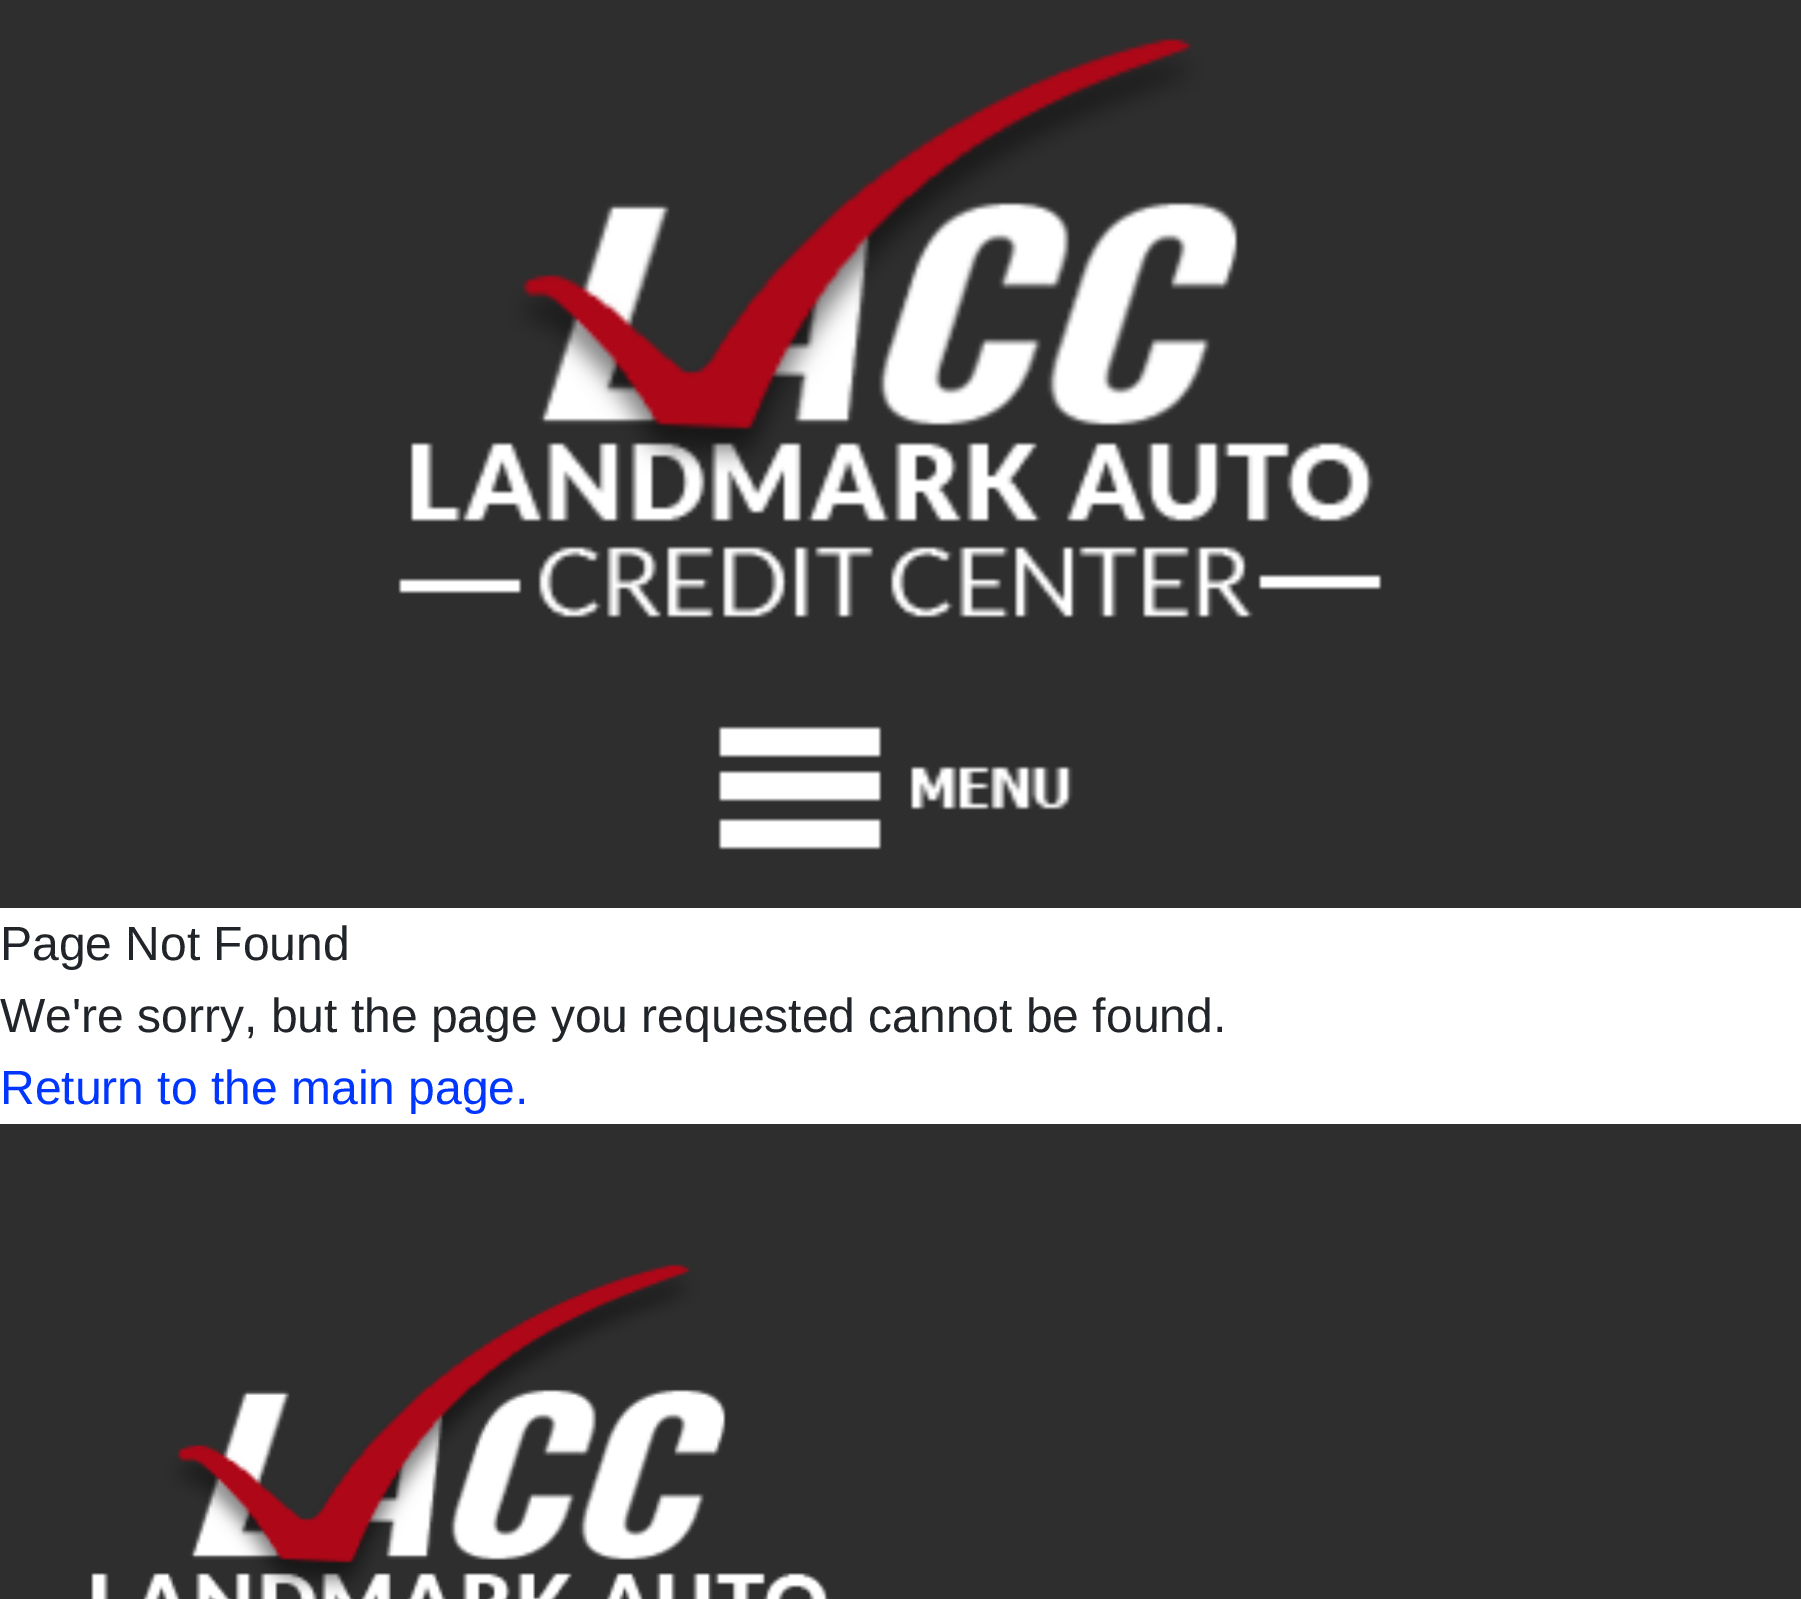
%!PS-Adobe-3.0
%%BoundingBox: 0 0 1801 1599
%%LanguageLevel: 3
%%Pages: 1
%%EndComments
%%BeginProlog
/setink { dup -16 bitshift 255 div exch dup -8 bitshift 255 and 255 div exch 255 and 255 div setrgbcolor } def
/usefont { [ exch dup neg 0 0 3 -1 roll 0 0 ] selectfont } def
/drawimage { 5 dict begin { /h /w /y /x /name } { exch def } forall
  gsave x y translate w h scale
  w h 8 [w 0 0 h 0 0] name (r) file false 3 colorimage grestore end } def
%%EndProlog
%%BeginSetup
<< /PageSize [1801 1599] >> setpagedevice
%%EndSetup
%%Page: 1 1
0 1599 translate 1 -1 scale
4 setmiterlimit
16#FFFFFF setink
0 0 1801 1599 rectfill
16#2E2E2E setink
0 0 1801 908 rectfill
(img1.raw) 398 38 984 580 drawimage
(img2.raw) 718 726 355 124 drawimage
/LiberationSans-Regular 48 usefont
16#212529 setink
0 960 moveto (Page Not Found) show
0 1032 moveto (We're sorry, but the page you requested cannot be found.) show
16#0036FF setink
0 1104 moveto (Return to the main page.) show
16#2E2E2E setink
0 1124 1801 475 rectfill
(img3.raw) 91 1264 739 335 drawimage
showpage
%%EOF
